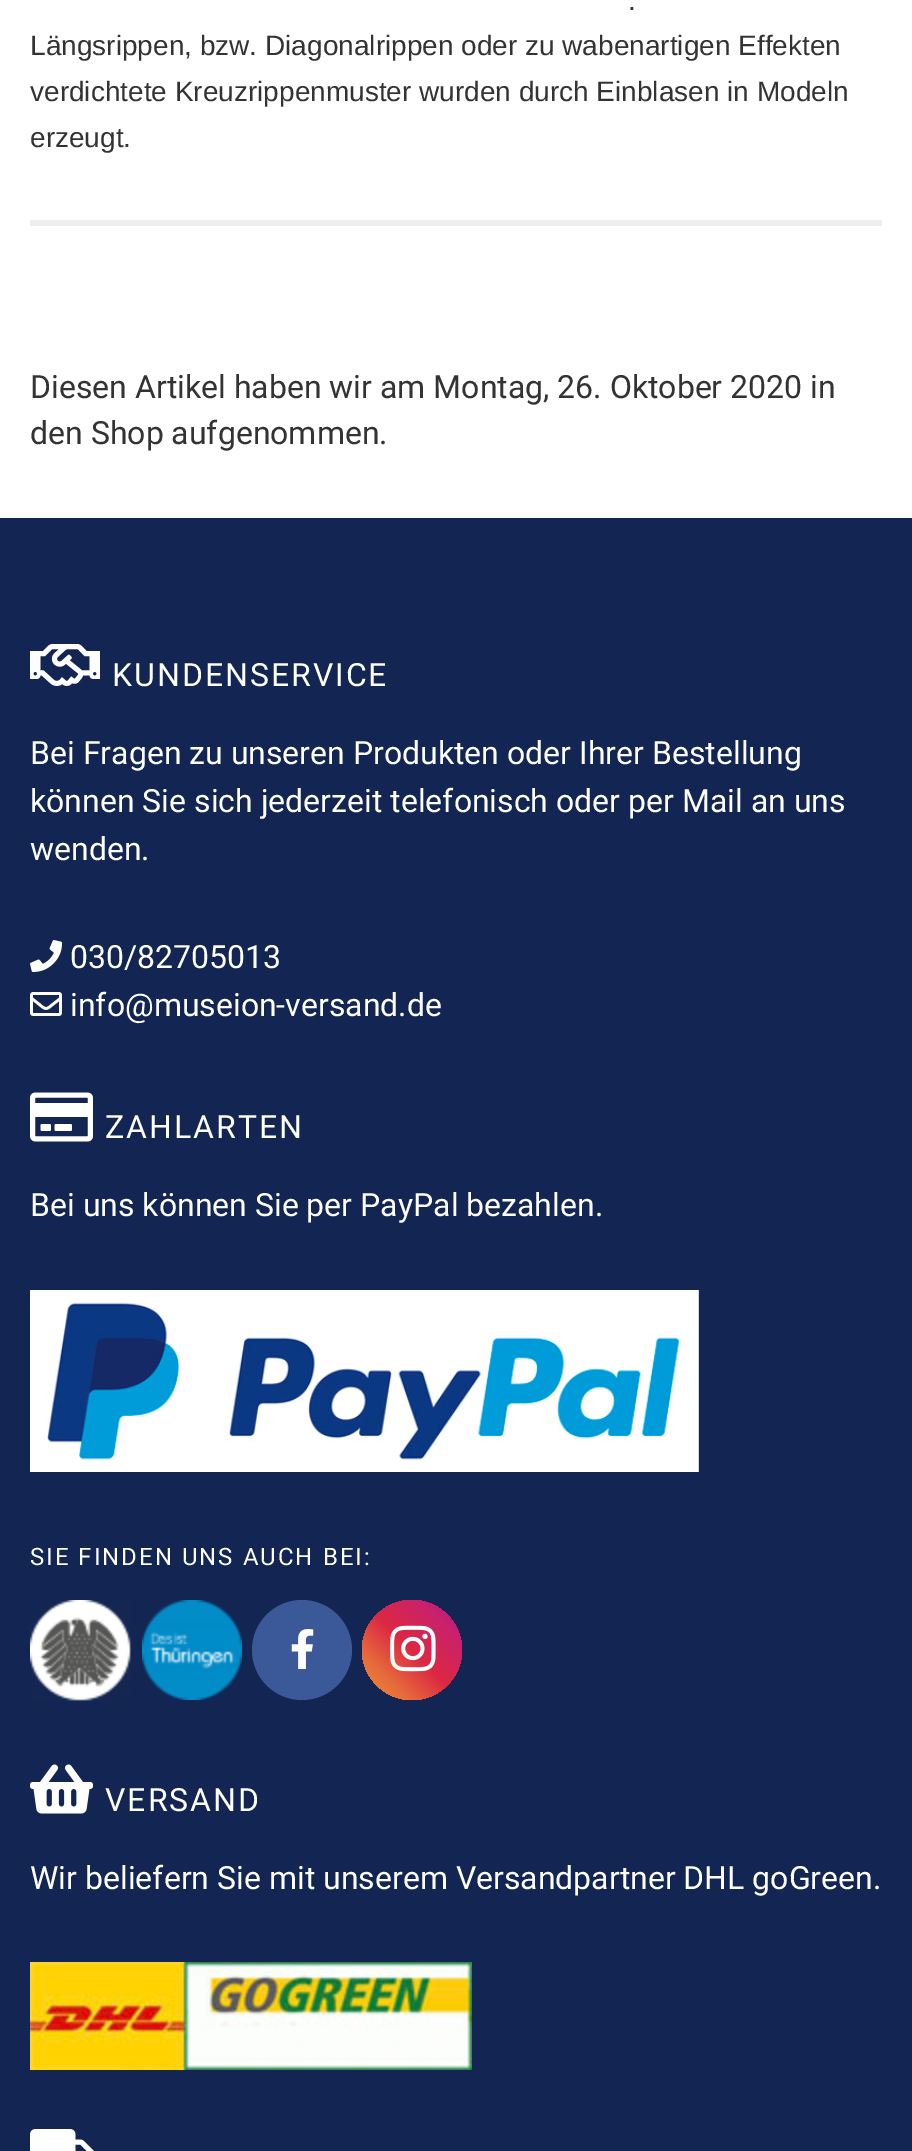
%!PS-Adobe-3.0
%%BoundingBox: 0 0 912 2151
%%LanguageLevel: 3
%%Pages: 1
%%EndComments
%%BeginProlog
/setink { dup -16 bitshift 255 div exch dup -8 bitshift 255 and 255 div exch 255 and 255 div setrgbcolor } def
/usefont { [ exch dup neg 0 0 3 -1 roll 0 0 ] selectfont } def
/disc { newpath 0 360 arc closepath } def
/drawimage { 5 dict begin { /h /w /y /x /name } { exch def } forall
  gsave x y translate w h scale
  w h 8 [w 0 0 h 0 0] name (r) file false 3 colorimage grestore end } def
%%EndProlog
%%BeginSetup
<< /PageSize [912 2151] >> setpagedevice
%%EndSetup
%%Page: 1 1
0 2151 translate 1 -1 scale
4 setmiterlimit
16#FFFFFF setink
0 0 912 2151 rectfill
16#EEEEEE setink
30 220 852 6 rectfill
/LiberationSans-Regular 28 usefont
16#333333 setink
[
    [(.) 628 10]
    [(Längsrippen, bzw. Diagonalrippen oder zu wabenartigen Effekten) 30 55]
    [(verdichtete Kreuzrippenmuster wurden durch Einblasen in Modeln) 30 101]
    [(erzeugt.) 30 147]
] { aload pop moveto show } forall
/Roboto-Regular 32 usefont
30 398 moveto (Diesen Artikel haben wir am Montag, 26. Oktober 2020 in) show
30 444 moveto (den Shop aufgenommen.) show
16#132552 setink
0 518 912 1633 rectfill
(img1.raw) 30 644 70 42 drawimage
16#FFFFFF setink
112 686 moveto 2 0 (KUNDENSERVICE) ashow
[
    [(Bei Fragen zu unseren Produkten oder Ihrer Bestellung) 30 764]
    [(können Sie sich jederzeit telefonisch oder per Mail an uns) 30 812]
    [(wenden.) 30 860]
] { aload pop moveto show } forall
(img2.raw) 30 940 33 32 drawimage
70 968 moveto (030/82705013) show
(img3.raw) 30 992 32 24 drawimage
70 1016 moveto (info@museion-versand.de) show
(img4.raw) 30 1092 63 50 drawimage
105 1138 moveto 2 0 (ZAHLARTEN) ashow
30 1216 moveto (Bei uns können Sie per PayPal bezahlen.) show
(img5.raw) 30 1290 669 182 drawimage
/Roboto-Regular 24 usefont
30 1565 moveto 2 0 (SIE FINDEN UNS AUCH BEI:) ashow
(img6.raw) 30 1600 101 101 drawimage
(img7.raw) 142 1600 100 100 drawimage
16#3B5998 setink
302 1650 50 disc fill
(img8.raw) 291 1629 23 40 drawimage
gsave 412 1650 50 disc clip newpath
<< /ShadingType 2 /ColorSpace /DeviceRGB /Coords [362 1700 462 1600] /Extend [true true] /Function << /FunctionType 3 /Domain [0 1] /Functions [<< /FunctionType 2 /Domain [0 1] /C0 [0.941 0.58 0.2] /C1 [0.902 0.408 0.235] /N 1 >> << /FunctionType 2 /Domain [0 1] /C0 [0.902 0.408 0.235] /C1 [0.863 0.153 0.263] /N 1 >> << /FunctionType 2 /Domain [0 1] /C0 [0.863 0.153 0.263] /C1 [0.8 0.137 0.4] /N 1 >> << /FunctionType 2 /Domain [0 1] /C0 [0.8 0.137 0.4] /C1 [0.737 0.094 0.533] /N 1 >>] /Bounds [0.25 0.5 0.75] /Encode [0 1 0 1 0 1 0 1] >> >> shfill grestore
(img9.raw) 390 1625 46 47 drawimage
(img10.raw) 30 1764 63 50 drawimage
/Roboto-Regular 32 usefont
16#FFFFFF setink
105 1811 moveto 2 0 (VERSAND) ashow
30 1889 moveto (Wir beliefern Sie mit unserem Versandpartner DHL goGreen.) show
(img11.raw) 30 1962 442 108 drawimage
(img12.raw) 30 2129 64 22 drawimage
showpage
%%EOF
